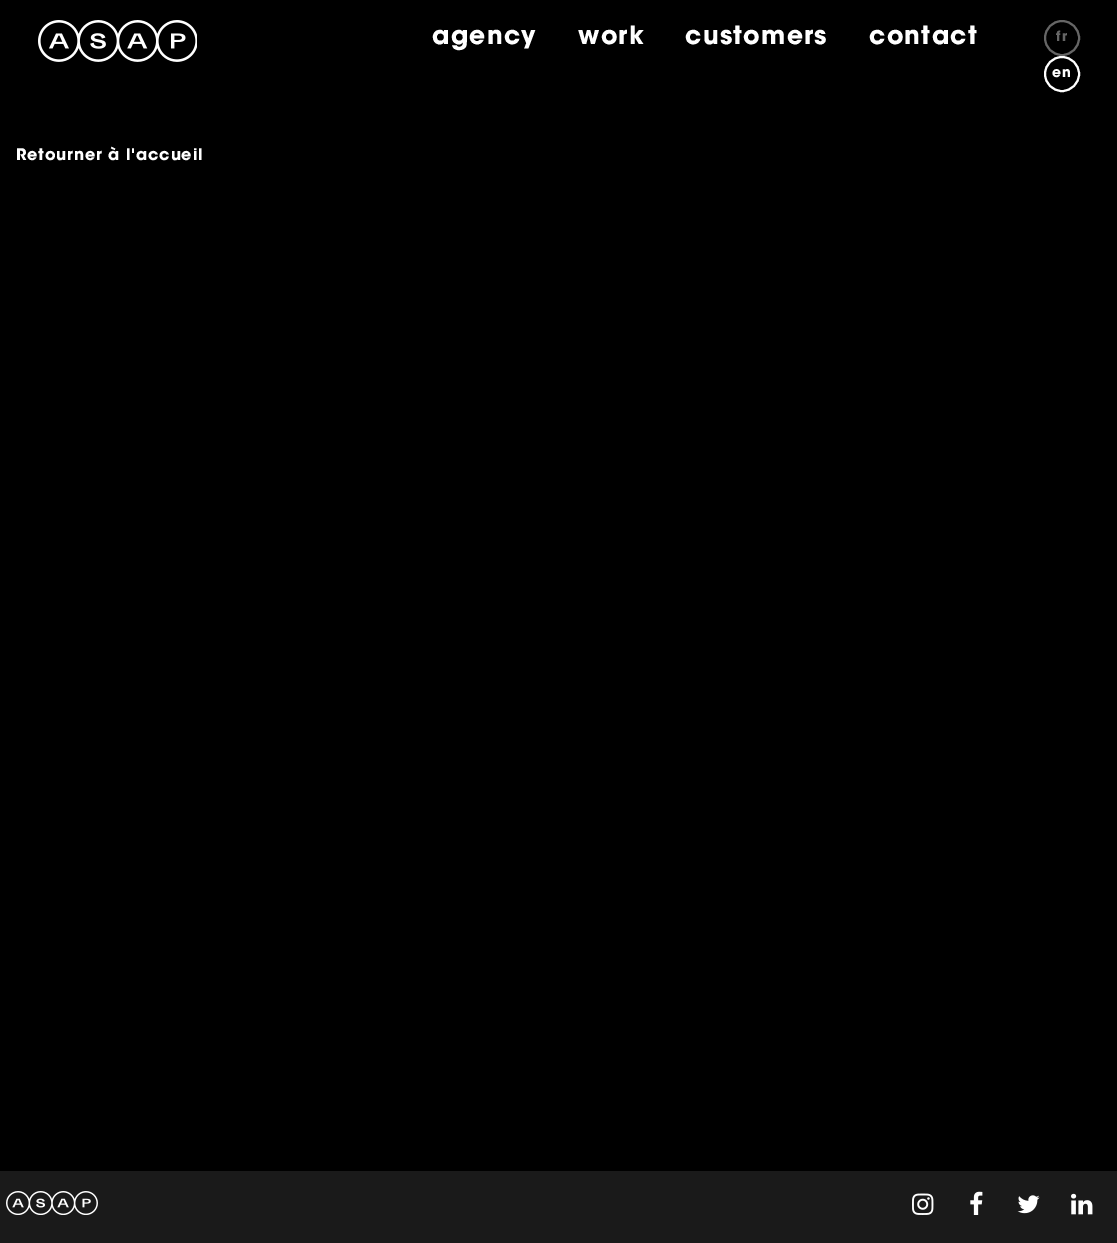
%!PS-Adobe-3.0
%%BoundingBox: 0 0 1117 1243
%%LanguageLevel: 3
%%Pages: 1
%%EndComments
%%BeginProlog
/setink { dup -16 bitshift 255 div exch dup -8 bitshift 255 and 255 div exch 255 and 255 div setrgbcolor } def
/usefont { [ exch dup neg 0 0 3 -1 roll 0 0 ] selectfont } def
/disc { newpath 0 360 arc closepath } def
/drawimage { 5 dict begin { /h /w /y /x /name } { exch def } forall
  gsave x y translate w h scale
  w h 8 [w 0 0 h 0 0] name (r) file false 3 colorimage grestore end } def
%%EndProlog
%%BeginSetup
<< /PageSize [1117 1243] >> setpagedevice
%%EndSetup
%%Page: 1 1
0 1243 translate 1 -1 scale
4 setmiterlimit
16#000000 setink
0 0 1117 1243 rectfill
(img1.raw) 38 20 159 42 drawimage
/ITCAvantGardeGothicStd-Bold 25 usefont
16#FFFFFF setink
432 44 moveto 1.25 0 (agency) ashow
578 44 moveto 1.25 0 (work) ashow
685 44 moveto 1.25 0 (customers) ashow
869 44 moveto 1.25 0 (contact) ashow
16#666666 setink
2 setlinewidth
1062 38 17 disc stroke
/ITCAvantGardeGothicStd-Bold 14 usefont
1056 41 moveto 1.25 0 (fr) ashow
16#FFFFFF setink
1062 74 17 disc stroke
1052 77 moveto 1.25 0 (en) ashow
/ITCAvantGardeGothicStd-Bold 16 usefont
16 160 moveto 0.8 0 (Retourner à l'accueil) ashow
16#1A1A1A setink
0 1171 1117 72 rectfill
(img2.raw) 6 1191 92 24 drawimage
(img3.raw) 912 1193 22 22 drawimage
(img4.raw) 970 1191 13 24 drawimage
(img5.raw) 1017 1195 23 19 drawimage
(img6.raw) 1071 1193 22 22 drawimage
showpage
%%EOF
